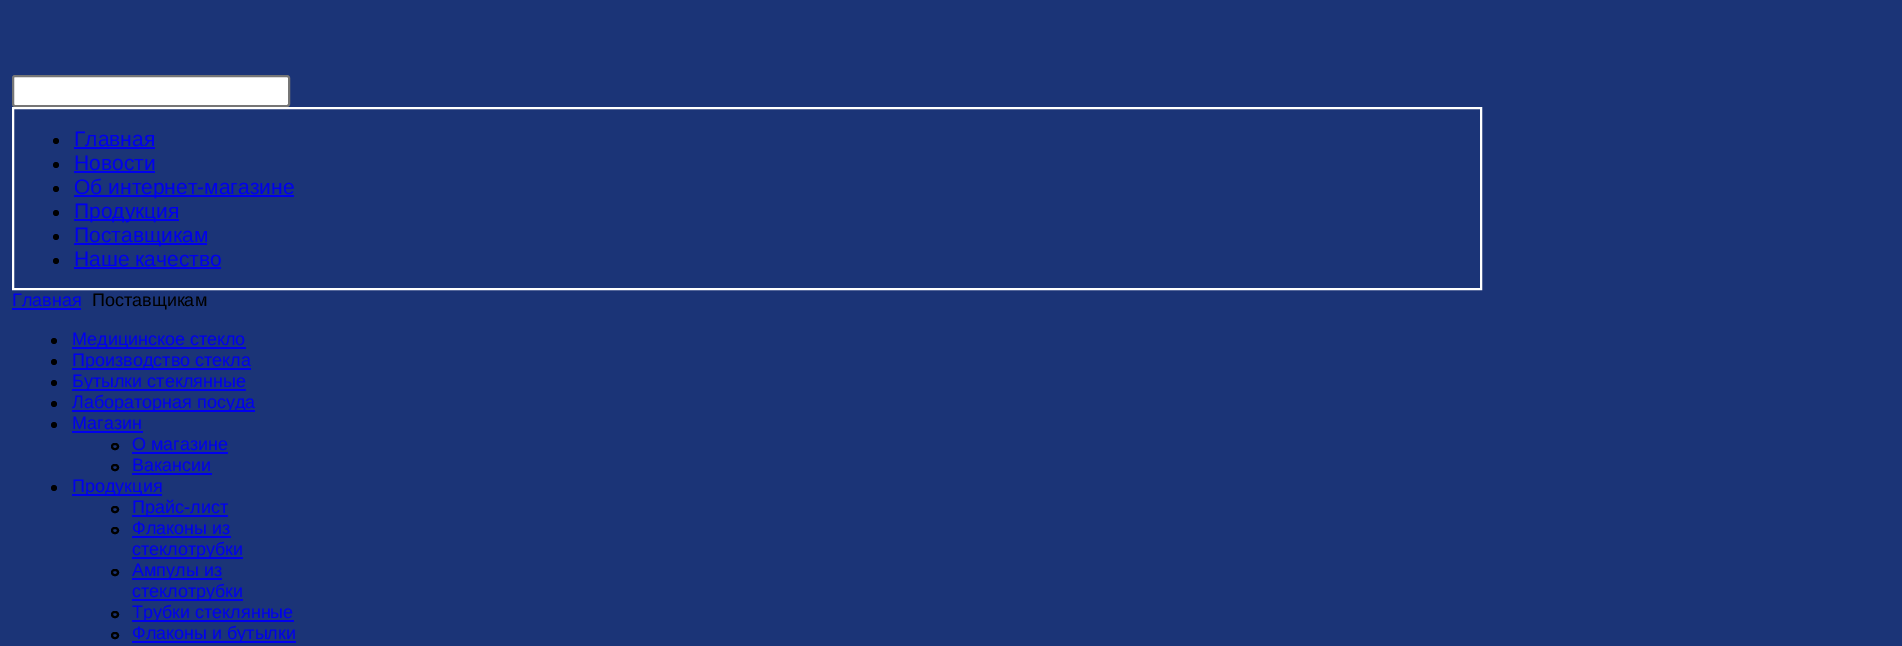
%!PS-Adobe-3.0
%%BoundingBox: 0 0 1902 646
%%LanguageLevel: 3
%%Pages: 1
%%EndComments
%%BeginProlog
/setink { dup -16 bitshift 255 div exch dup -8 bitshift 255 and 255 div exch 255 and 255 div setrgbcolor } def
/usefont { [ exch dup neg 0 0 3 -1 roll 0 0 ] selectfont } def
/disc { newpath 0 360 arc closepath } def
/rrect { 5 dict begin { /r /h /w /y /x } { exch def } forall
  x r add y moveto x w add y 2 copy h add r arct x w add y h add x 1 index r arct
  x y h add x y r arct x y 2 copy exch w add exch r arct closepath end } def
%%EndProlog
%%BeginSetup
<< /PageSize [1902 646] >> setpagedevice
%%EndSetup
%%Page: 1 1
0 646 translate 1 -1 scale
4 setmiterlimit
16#1B3477 setink
0 0 1902 646 rectfill
16#FFFFFF setink
13 76 276 30 2 rrect gsave fill grestore
16#767676 setink
2 setlinewidth
stroke
16#FFFFFF setink
13 108 1468 181 rectstroke
16#000000 setink
56 141 3 disc fill
/LiberationSans-Regular 21 usefont
16#0000EE setink
74 146 moveto (Главная) show
74 147 81 2 rectfill
16#000000 setink
56 165 3 disc fill
16#0000EE setink
74 170 moveto (Новости) show
74 171 81 2 rectfill
16#000000 setink
56 189 3 disc fill
16#0000EE setink
74 195 220 2 rectfill
74 194 moveto (Об интернет-магазине) show
16#000000 setink
56 213 3 disc fill
16#0000EE setink
74 219 105 2 rectfill
74 218 moveto (Продукция) show
16#000000 setink
56 237 3 disc fill
16#0000EE setink
74 243 133 2 rectfill
74 242 moveto (Поставщикам) show
16#000000 setink
56 261 3 disc fill
16#0000EE setink
74 266 moveto (Наше качество) show
74 267 147 2 rectfill
/LiberationSans-Regular 18 usefont
12 306 moveto (Главная) show
12 308 69 2 rectfill
16#000000 setink
92 306 moveto (Поставщикам) show
54 341 3 disc fill
16#0000EE setink
72 347 174 2 rectfill
72 345 moveto (Медицинское стекло) show
16#000000 setink
54 362 3 disc fill
16#0000EE setink
72 368 179 2 rectfill
72 366 moveto (Производство стекла) show
16#000000 setink
54 383 3 disc fill
16#0000EE setink
72 389 174 2 rectfill
72 387 moveto (Бутылки стеклянные) show
16#000000 setink
54 404 3 disc fill
16#0000EE setink
72 410 183 2 rectfill
72 408 moveto (Лабораторная посуда) show
16#000000 setink
54 425 3 disc fill
16#0000EE setink
72 429 moveto (Магазин) show
72 431 71 2 rectfill
16#000000 setink
112 444 6 5 2.5 rrect stroke
16#0000EE setink
132 450 moveto (О магазине) show
132 452 96 2 rectfill
16#000000 setink
112 465 6 5 2.5 rrect stroke
16#0000EE setink
132 471 moveto (Вакансии) show
132 473 80 2 rectfill
16#000000 setink
54 488 3 disc fill
16#0000EE setink
72 494 90 2 rectfill
72 492 moveto (Продукция) show
16#000000 setink
112 507 6 5 2.5 rrect stroke
16#0000EE setink
132 515 96 2 rectfill
132 513 moveto (Прайс-лист) show
16#000000 setink
112 528 6 5 2.5 rrect stroke
16#0000EE setink
132 534 moveto (Флаконы из) show
132 536 99 2 rectfill
132 557 111 2 rectfill
132 555 moveto (стеклотрубки) show
16#000000 setink
112 570 6 5 2.5 rrect stroke
16#0000EE setink
132 578 90 2 rectfill
132 576 moveto (Ампулы из) show
132 599 111 2 rectfill
132 597 moveto (стеклотрубки) show
16#000000 setink
112 612 6 5 2.5 rrect stroke
16#0000EE setink
132 620 162 2 rectfill
132 618 moveto (Трубки стеклянные) show
16#000000 setink
112 633 6 5 2.5 rrect stroke
16#0000EE setink
132 641 164 2 rectfill
132 639 moveto (Флаконы и бутылки) show
showpage
%%EOF
